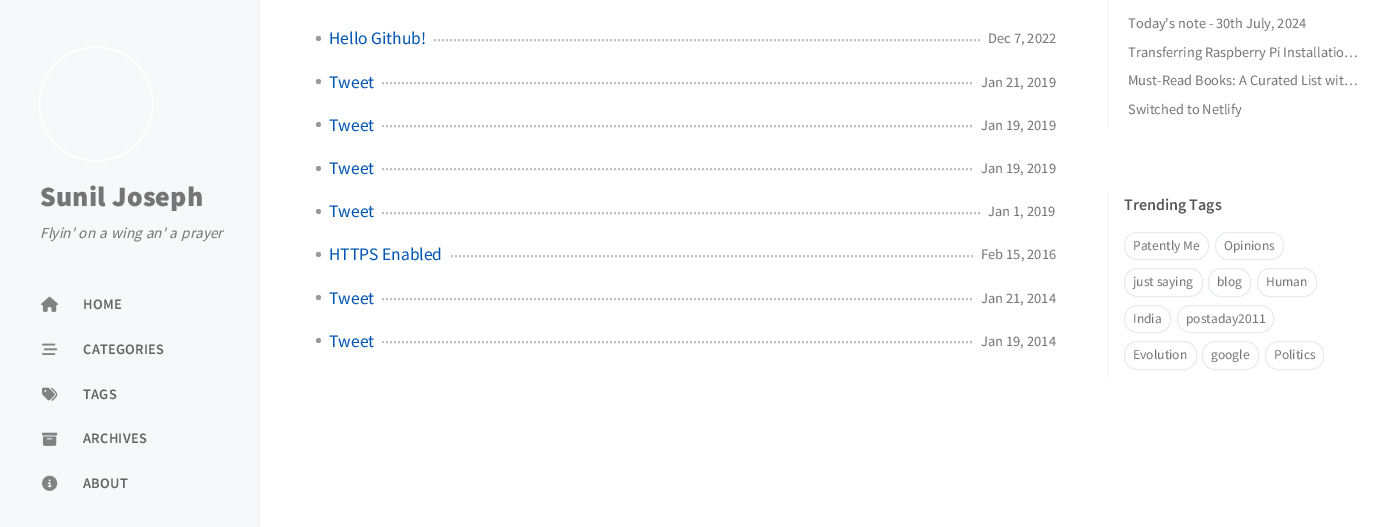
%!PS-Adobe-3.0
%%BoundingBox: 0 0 1387 527
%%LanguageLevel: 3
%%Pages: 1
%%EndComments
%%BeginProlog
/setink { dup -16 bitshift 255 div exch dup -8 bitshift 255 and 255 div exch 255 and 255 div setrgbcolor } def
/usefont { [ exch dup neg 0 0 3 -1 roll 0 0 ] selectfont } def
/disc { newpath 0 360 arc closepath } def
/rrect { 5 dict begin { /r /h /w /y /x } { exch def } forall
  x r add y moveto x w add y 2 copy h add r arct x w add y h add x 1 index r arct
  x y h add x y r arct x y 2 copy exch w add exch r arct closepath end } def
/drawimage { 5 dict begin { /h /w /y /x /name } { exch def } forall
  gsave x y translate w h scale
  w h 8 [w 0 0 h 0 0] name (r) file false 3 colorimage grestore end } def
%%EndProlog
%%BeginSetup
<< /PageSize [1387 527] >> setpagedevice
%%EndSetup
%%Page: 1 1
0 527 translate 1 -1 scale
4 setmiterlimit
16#FFFFFF setink
0 0 1387 527 rectfill
16#F6F8FA setink
0 0 259 527 rectfill
16#EFEFEF setink
259 0 1 527 rectfill
16#FFFFFF setink
2 setlinewidth
96 104 57 disc stroke
/SourceSansPro-Black 28 usefont
16#757575 setink
40 206 moveto 0.25 0 (Sunil Joseph) ashow
/SourceSansPro-Italic 15.25 usefont
40 238 moveto 1 0 32 (Flyin' on a wing an' a prayer) widthshow
(img1.raw) 41 296 17 16 drawimage
/SourceSansPro-SemiBold 14.4 usefont
16#646465 setink
83 309 moveto 0.25 0 (HOME) ashow
(img2.raw) 42 343 16 12 drawimage
83 354 moveto 0.25 0 (CATEGORIES) ashow
(img3.raw) 42 387 16 14 drawimage
83 399 moveto 0.25 0 (TAGS) ashow
(img4.raw) 42 432 16 14 drawimage
83 443 moveto 0.25 0 (ARCHIVES) ashow
(img5.raw) 42 475 16 16 drawimage
83 488 moveto 0.25 0 (ABOUT) ashow
16#999999 setink
318.5 38.5 2.5 disc fill
/SourceSansPro-Regular 17.5 usefont
16#0056B2 setink
329 44 moveto (Hello Github!) show
16#C0C0C0 setink
[2 2] 0 setdash
434 40 moveto 980 40 lineto stroke
/SourceSansPro-Regular 14.5 usefont
16#757575 setink
988 43 moveto (Dec 7, 2022) show
16#999999 setink
318.5 81.5 2.5 disc fill
/SourceSansPro-Regular 17.5 usefont
16#0056B2 setink
329 88 moveto (Tweet) show
16#C0C0C0 setink
382 83 moveto 973 83 lineto stroke
/SourceSansPro-Regular 14.5 usefont
16#757575 setink
981 87 moveto (Jan 21, 2019) show
16#999999 setink
318.5 124.5 2.5 disc fill
/SourceSansPro-Regular 17.5 usefont
16#0056B2 setink
329 131 moveto (Tweet) show
16#C0C0C0 setink
382 126 moveto 973 126 lineto stroke
/SourceSansPro-Regular 14.5 usefont
16#757575 setink
981 130 moveto (Jan 19, 2019) show
16#999999 setink
318.5 168.5 2.5 disc fill
/SourceSansPro-Regular 17.5 usefont
16#0056B2 setink
329 174 moveto (Tweet) show
16#C0C0C0 setink
382 169 moveto 973 169 lineto stroke
/SourceSansPro-Regular 14.5 usefont
16#757575 setink
981 173 moveto (Jan 19, 2019) show
16#999999 setink
318.5 211.5 2.5 disc fill
/SourceSansPro-Regular 17.5 usefont
16#0056B2 setink
329 217 moveto (Tweet) show
16#C0C0C0 setink
382 213 moveto 980 213 lineto stroke
/SourceSansPro-Regular 14.5 usefont
16#757575 setink
988 216 moveto (Jan 1, 2019) show
16#999999 setink
318.5 254.5 2.5 disc fill
/SourceSansPro-Regular 17.5 usefont
16#0056B2 setink
329 260 moveto (HTTPS Enabled) show
16#C0C0C0 setink
451 256 moveto 973 256 lineto stroke
/SourceSansPro-Regular 14.5 usefont
16#757575 setink
981 259 moveto (Feb 15, 2016) show
16#999999 setink
318.5 297.5 2.5 disc fill
/SourceSansPro-Regular 17.5 usefont
16#0056B2 setink
329 304 moveto (Tweet) show
16#C0C0C0 setink
382 299 moveto 973 299 lineto stroke
/SourceSansPro-Regular 14.5 usefont
16#757575 setink
981 303 moveto (Jan 21, 2014) show
16#999999 setink
318.5 340.5 2.5 disc fill
/SourceSansPro-Regular 17.5 usefont
16#0056B2 setink
329 347 moveto (Tweet) show
16#C0C0C0 setink
382 342 moveto 973 342 lineto stroke
/SourceSansPro-Regular 14.5 usefont
16#757575 setink
981 346 moveto (Jan 19, 2014) show
16#F3F3F3 setink
1107 0 1 128 rectfill
/SourceSansPro-Regular 14.4 usefont
16#757575 setink
[
    [(Today's note - 30th July, 2024) 1128 28]
    [(Transferring Raspberry Pi Installatio…) 1128 57]
    [(Must-Read Books: A Curated List wit…) 1128 85]
    [(Switched to Netlify) 1128 114]
] { aload pop moveto show } forall
16#F3F3F3 setink
1107 192 1 186 rectfill
/SourceSansPro-SemiBold 16 usefont
16#585858 setink
1124 210 moveto (Trending Tags) show
16#E9ECEF setink
1 setlinewidth
[] 0 setdash
1124.5 232.5 84 27 12.5 rrect stroke
/SourceSansPro-Regular 13.5 usefont
16#757575 setink
1133 250 moveto (Patently Me) show
16#E9ECEF setink
1215.5 232.5 68 27 12.5 rrect stroke
16#757575 setink
1224 250 moveto (Opinions) show
16#E9ECEF setink
1124.5 268.5 78 28 12.5 rrect stroke
16#757575 setink
1133 286 moveto (just saying) show
16#E9ECEF setink
1208.5 268.5 42 28 12.5 rrect stroke
16#757575 setink
1217 286 moveto (blog) show
16#E9ECEF setink
1257.5 268.5 59 28 12.5 rrect stroke
16#757575 setink
1266 286 moveto (Human) show
16#E9ECEF setink
1124.5 305.5 46 27 12.5 rrect stroke
16#757575 setink
1133 323 moveto (India) show
16#E9ECEF setink
1177.5 305.5 96 27 12.5 rrect stroke
16#757575 setink
1186 323 moveto (postaday2011) show
16#E9ECEF setink
1124.5 341.5 72 28 12.5 rrect stroke
16#757575 setink
1133 359 moveto (Evolution) show
16#E9ECEF setink
1202.5 341.5 56 28 12.5 rrect stroke
16#757575 setink
1211 359 moveto (google) show
16#E9ECEF setink
1265.5 341.5 58 28 12.5 rrect stroke
16#757575 setink
1274 359 moveto (Politics) show
showpage
%%EOF
